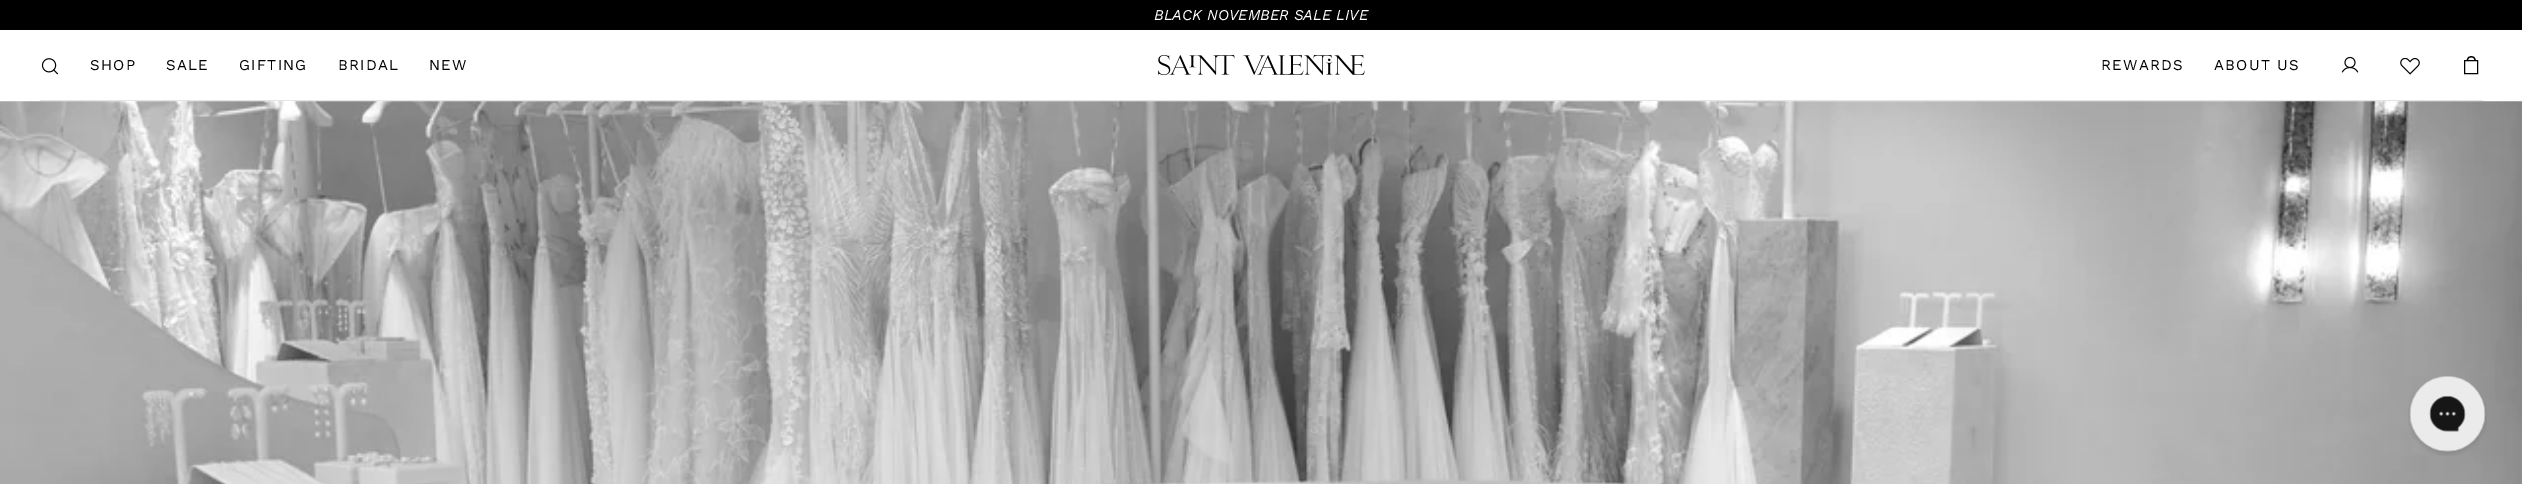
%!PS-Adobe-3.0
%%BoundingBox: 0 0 2522 484
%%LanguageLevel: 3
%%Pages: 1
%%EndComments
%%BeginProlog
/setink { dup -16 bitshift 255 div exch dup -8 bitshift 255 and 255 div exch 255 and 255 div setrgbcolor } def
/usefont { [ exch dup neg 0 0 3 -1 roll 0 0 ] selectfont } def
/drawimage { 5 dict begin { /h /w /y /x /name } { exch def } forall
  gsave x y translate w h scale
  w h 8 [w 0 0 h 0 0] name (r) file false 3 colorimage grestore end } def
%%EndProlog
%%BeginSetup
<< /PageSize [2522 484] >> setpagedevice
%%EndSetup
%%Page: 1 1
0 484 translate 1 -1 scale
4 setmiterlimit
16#FFFFFF setink
0 0 2522 484 rectfill
16#000000 setink
0 0 2522 30 rectfill
/WorkSans-Italic 15 usefont
16#FFFFFF setink
1154 20 moveto (BLACK NOVEMBER SALE LIVE) show
16#E4E4E4 setink
40 100 2443 1 rectfill
(img1.raw) 41 58 18 17 drawimage
/WorkSans-Regular 15 usefont
16#000000 setink
90 70 moveto 1.25 0 (SHOP) ashow
166 70 moveto 1.25 0 (SALE) ashow
239 70 moveto 1.25 0 (GIFTING) ashow
338 70 moveto 1.25 0 (BRIDAL) ashow
429 70 moveto 1.25 0 (NEW) ashow
(img2.raw) 1158 55 207 20 drawimage
2101 70 moveto 1.25 0 (REWARDS) ashow
2214 70 moveto 1.25 0 (ABOUT US) ashow
(img3.raw) 2341 56 18 17 drawimage
(img4.raw) 2400 58 20 17 drawimage
1.2 setlinewidth
1 setlinecap
1 setlinejoin
2467.5 60 moveto 2467.5 55.5 2475 55.5 2475 60 curveto stroke
1 setlinewidth
0 setlinecap
0 setlinejoin
2464.5 60.5 13 13 rectstroke
(img5.raw) 0 101 2522 383 drawimage
(img6.raw) 2408 376 79 80 drawimage
showpage
%%EOF
